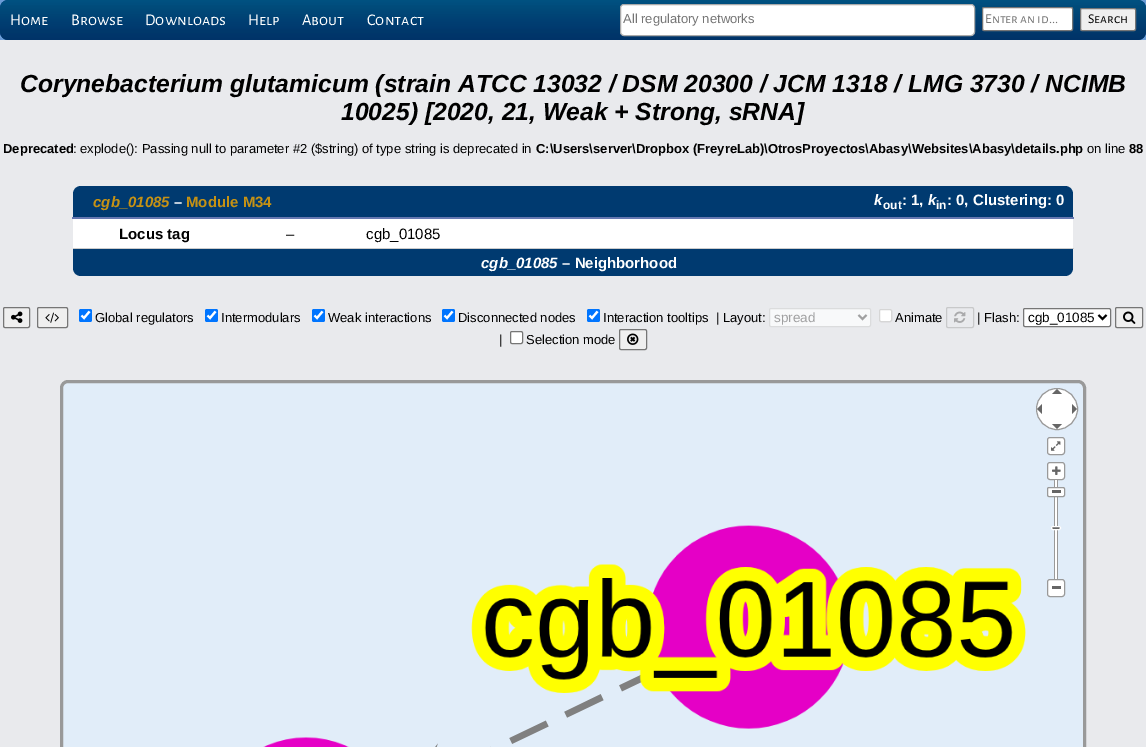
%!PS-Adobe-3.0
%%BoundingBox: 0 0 1146 747
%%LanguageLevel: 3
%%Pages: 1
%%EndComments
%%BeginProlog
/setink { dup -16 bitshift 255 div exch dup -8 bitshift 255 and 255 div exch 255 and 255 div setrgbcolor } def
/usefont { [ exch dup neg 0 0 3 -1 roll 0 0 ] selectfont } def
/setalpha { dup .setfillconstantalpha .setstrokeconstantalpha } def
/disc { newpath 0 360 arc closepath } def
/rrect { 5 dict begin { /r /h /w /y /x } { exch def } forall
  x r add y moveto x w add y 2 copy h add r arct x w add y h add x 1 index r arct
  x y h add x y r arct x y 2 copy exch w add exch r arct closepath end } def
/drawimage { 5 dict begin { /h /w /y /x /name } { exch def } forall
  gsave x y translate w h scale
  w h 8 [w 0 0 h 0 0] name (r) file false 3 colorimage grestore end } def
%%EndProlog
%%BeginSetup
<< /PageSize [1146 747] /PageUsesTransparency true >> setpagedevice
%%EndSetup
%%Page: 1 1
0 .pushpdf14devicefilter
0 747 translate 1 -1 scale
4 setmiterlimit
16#E9EAED setink
0 0 1146 747 rectfill
(img1.raw) 0 0 1146 40 drawimage
16#003A70 setink
0 0 1146 40 8 rrect fill
(img2.raw) 0 0 1146 40 drawimage
/AlegreyaSansSC-Regular 16.25 usefont
16#FFFFFF setink
[
    [(Home) 10 25]
    [(Browse) 71 25]
    [(Downloads) 145 25]
    [(Help) 248 25]
    [(About) 302 25]
    [(Contact) 367 25]
] { aload pop moveto show } forall
620.5 4.5 354 31 3.5 rrect gsave fill grestore
16#AAAAAA setink
stroke
/LiberationSans-Regular 13 usefont
16#757575 setink
623 23 moveto (All regulatory networks) show
16#FFFFFF setink
982.5 7.5 90 23 1.5 rrect gsave fill grestore
16#767676 setink
stroke
/AlegreyaSansSC-Regular 13.5 usefont
16#757575 setink
985 23 moveto (Enter an id...) show
16#EFEFEF setink
1080.5 8.5 55 22 1.5 rrect gsave fill grestore
16#767676 setink
stroke
16#000000 setink
1088 23 moveto (Search) show
/LiberationSans-BoldItalic 24.7 usefont
20 92 moveto (Corynebacterium glutamicum \(strain ATCC 13032 / DSM 20300 / JCM 1318 / LMG 3730 / NCIMB) show
341 120 moveto (10025\) [2020, 21, Weak + Strong, sRNA]) show
/LiberationSans-Bold 13 usefont
3 153 moveto (Deprecated) show
/LiberationSans-Regular 13 usefont
73 153 moveto (: explode\(\): Passing null to parameter #2 \($string\) of type string is deprecated in) show
/LiberationSans-Bold 13 usefont
536 153 moveto (C:\\Users\\server\\Dropbox \(FreyreLab\)\\OtrosProyectos\\Abasy\\Websites\\Abasy\\details.php) show
/LiberationSans-Regular 13 usefont
1087 153 moveto (on line) show
/LiberationSans-Bold 13 usefont
1129 153 moveto (88) show
16#FFFFFF setink
73 186 1000 90 8 rrect fill
16#003A70 setink
81 186 moveto 358 186 lineto 358 218 lineto 73 218 lineto 73 194 lineto 73 189.5 76.5 186 81 186 curveto closepath fill
/LiberationSans-BoldItalic 15 usefont
16#C69214 setink
93 207 moveto (cgb_01085) show
/LiberationSans-Bold 15 usefont
16#FFFFFF setink
174 207 moveto (–) show
16#C69214 setink
186 207 moveto (Module M34) show
16#003A70 setink
358 186 moveto 1065 186 lineto 1069.5 186 1073 189.5 1073 194 curveto 1073 218 lineto 358 218 lineto closepath fill
16#6678B1 setink
72 217 1002 2 rectfill
/LiberationSans-BoldItalic 15 usefont
16#FFFFFF setink
874 205 moveto (k) show
/LiberationSans-Bold 12 usefont
883 209 moveto (out) show
/LiberationSans-Bold 15 usefont
902 205 moveto (: 1,) show
/LiberationSans-BoldItalic 15 usefont
928 205 moveto (k) show
/LiberationSans-Bold 12 usefont
936 209 moveto (in) show
/LiberationSans-Bold 15 usefont
947 205 moveto (: 0, Clustering: 0) show
16#000000 setink
119 239 moveto (Locus tag) show
/LiberationSans-Regular 15 usefont
286 239 moveto (–) show
16#CCCCCC setink
73 248 1001 1 rectfill
16#000000 setink
366 239 moveto (cgb_01085) show
16#003A70 setink
73 249 moveto 1073 249 lineto 1073 268 lineto 1073 272.5 1069.5 276 1065 276 curveto 81 276 lineto 76.5 276 73 272.5 73 268 curveto closepath fill
/LiberationSans-BoldItalic 15 usefont
16#FFFFFF setink
481 268 moveto (cgb_01085) show
/LiberationSans-Bold 15 usefont
562 268 moveto (– Neighborhood) show
16#EFEFEF setink
3.5 307.5 26 20 1.5 rrect gsave fill grestore
16#767676 setink
stroke
(img3.raw) 11 311 12 12 drawimage
16#EFEFEF setink
37.5 307.5 30 20 1.5 rrect gsave fill grestore
16#767676 setink
stroke
(img4.raw) 45 312 14 11 drawimage
16#0075FF setink
79 309 13 13 2 rrect fill
16#FFFFFF setink
2.1 setlinewidth
81.5 315.5 moveto 84 318 lineto 89.5 311.5 lineto stroke
/LiberationSans-Regular 13 usefont
16#000000 setink
95 322 moveto (Global regulators) show
16#0075FF setink
205 309 13 13 2 rrect fill
16#FFFFFF setink
207.5 315.5 moveto 210 318 lineto 215.5 311.5 lineto stroke
16#000000 setink
221 322 moveto (Intermodulars) show
16#0075FF setink
312 309 13 13 2 rrect fill
16#FFFFFF setink
314.5 315.5 moveto 317 318 lineto 322.5 311.5 lineto stroke
16#000000 setink
328 322 moveto (Weak interactions) show
16#0075FF setink
442 309 13 13 2 rrect fill
16#FFFFFF setink
444.5 315.5 moveto 447 318 lineto 452.5 311.5 lineto stroke
16#000000 setink
458 322 moveto (Disconnected nodes) show
16#0075FF setink
587 309 13 13 2 rrect fill
16#FFFFFF setink
589.5 315.5 moveto 592 318 lineto 597.5 311.5 lineto stroke
16#000000 setink
603 322 moveto (Interaction tooltips) show
716 322 moveto (| Layout:) show
16#F8F9FA setink
769.5 308.5 101 18 1.5 rrect gsave fill grestore
16#DBDCDD setink
1 setlinewidth
stroke
16#A0A0A1 setink
2 setlinewidth
858.5 315 moveto 862.5 319 lineto 866.5 315 lineto stroke
/LiberationSans-Regular 13.5 usefont
774 322 moveto (spread) show
16#FFFFFF setink
879 309 13 13 2 rrect fill
0.3 setalpha
16#767676 setink
1 setlinewidth
879.5 309.5 12 12 1.5 rrect stroke
/LiberationSans-Regular 13 usefont
1 setalpha
16#000000 setink
895 322 moveto (Animate) show
16#C8C9CA setink
946.5 307.5 27 20 1.5 rrect stroke
(img5.raw) 954 311 12 12 drawimage
16#000000 setink
977 322 moveto (| Flash:) show
16#FFFFFF setink
1023.5 308.5 87 18 1.5 rrect gsave fill grestore
16#767676 setink
stroke
16#000000 setink
2 setlinewidth
1098.5 315 moveto 1102.5 319 lineto 1106.5 315 lineto stroke
/LiberationSans-Regular 13.5 usefont
1028 322 moveto (cgb_01085) show
16#EFEFEF setink
1115.5 307.5 27 20 1.5 rrect gsave fill grestore
16#767676 setink
1 setlinewidth
stroke
(img6.raw) 1123 311 13 13 drawimage
/LiberationSans-Regular 13 usefont
16#000000 setink
499 344 moveto (|) show
16#FFFFFF setink
510.5 331.5 12 12 1.5 rrect gsave fill grestore
16#767676 setink
stroke
16#000000 setink
526 344 moveto (Selection mode) show
16#EFEFEF setink
619.5 329.5 27 20 1.5 rrect gsave fill grestore
16#767676 setink
stroke
(img7.raw) 627 333 12 12 drawimage
16#E1EDF9 setink
61.5 381.5 1023 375 6.5 rrect gsave fill grestore
16#999999 setink
3 setlinewidth
stroke
16#FFFFFF setink
1057 409 20.5 disc gsave fill grestore
16#999999 setink
1 setlinewidth
stroke
16#666666 setink
1062 394 moveto 1052 394 lineto 1057 389 lineto closepath 1052 424 moveto 1062 424 lineto 1057 429 lineto closepath 1042 404 moveto 1042 414 lineto 1037 409 lineto closepath 1072 414 moveto 1072 404 lineto 1077 409 lineto closepath fill
16#FFFFFF setink
1047.5 437.5 17 17 2.5 rrect gsave fill grestore
16#999999 setink
stroke
(img8.raw) 1051 441 10 10 drawimage
16#FFFFFF setink
1047.5 462.5 17 17 2.5 rrect gsave fill grestore
16#999999 setink
stroke
(img9.raw) 1052 466 9 9 drawimage
[
    [1055 480 2 100 16#FFFFFF]
    [1057 480 1 100 16#999999]
    [1054 480 1 100 16#999999]
] { aload pop setink rectfill } forall
16#FFFFFF setink
1047.5 487.5 17 9 1.5 rrect gsave fill grestore
16#999999 setink
stroke
16#666666 setink
1052 490 9 3 rectfill
1051.5 526.5 9 3 1.5 rrect gsave fill grestore
16#FFFFFF setink
stroke
1047.5 579.5 17 17 2.5 rrect gsave fill grestore
16#999999 setink
stroke
16#666666 setink
1052 586 9 3 rectfill
(img10.raw) 263 525 763 222 drawimage
.poppdf14devicefilter showpage
%%EOF
